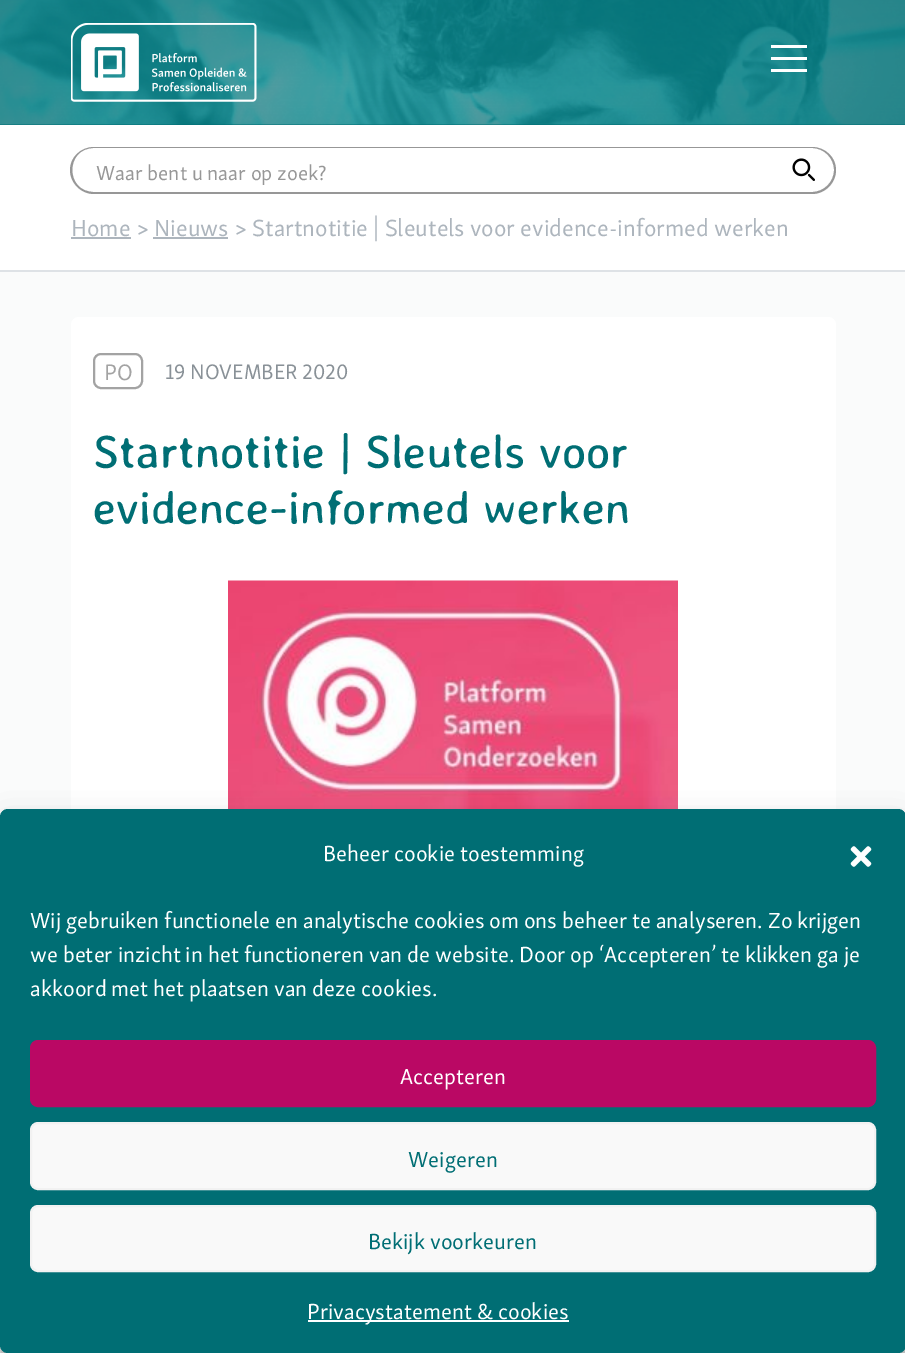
%!PS-Adobe-3.0
%%BoundingBox: 0 0 905 1353
%%LanguageLevel: 3
%%Pages: 1
%%EndComments
%%BeginProlog
/setink { dup -16 bitshift 255 div exch dup -8 bitshift 255 and 255 div exch 255 and 255 div setrgbcolor } def
/usefont { [ exch dup neg 0 0 3 -1 roll 0 0 ] selectfont } def
/setalpha { dup .setfillconstantalpha .setstrokeconstantalpha } def
/rrect { 5 dict begin { /r /h /w /y /x } { exch def } forall
  x r add y moveto x w add y 2 copy h add r arct x w add y h add x 1 index r arct
  x y h add x y r arct x y 2 copy exch w add exch r arct closepath end } def
/softshadow { 12 dict begin { /a /b /q /h /w /y /x } { exch def } forall gsave /was 0 def
  9 -2 -9 { dup b mul 4 div /e exch def 1 sub .425 mul 2.718 exch exp 1 add a .99 .min exch div /now exch def
    1 1 now sub 1 was sub div sub setalpha /was now def
    w h .min e 2 mul add 0 gt { x e sub y e sub w e 2 mul add h e 2 mul add
      q e add b .6 mul add w h .min 2 div e add .min 0 .max rrect fill } if } for grestore end } def
/drawimage { 5 dict begin { /h /w /y /x /name } { exch def } forall
  gsave x y translate w h scale
  w h 8 [w 0 0 h 0 0] name (r) file false 3 colorimage grestore end } def
%%EndProlog
%%BeginSetup
<< /PageSize [905 1353] /PageUsesTransparency true >> setpagedevice
%%EndSetup
%%Page: 1 1
0 .pushpdf14devicefilter
0 1353 translate 1 -1 scale
4 setmiterlimit
16#FAFBFB setink
0 0 905 1353 rectfill
16#006E74 setink
0 0 905 125 rectfill
(img1.raw) 0 0 905 125 drawimage
(img2.raw) 71 23 186 79 drawimage
[
    [771 57 36 3 16#FFFFFF]
    [771 45 36 3 16#FFFFFF]
    [771 69 36 3 16#FFFFFF]
    [0 125 905 145 16#FFFFFF]
    [0 270 905 2 16#DEE2E6]
] { aload pop setink rectfill } forall
16#979797 setink
774 147 moveto 812 147 lineto 825 147 836 157 836 170 curveto 836 183 825 194 812 194 curveto 774 194 lineto closepath 774 148 moveto 812 148 lineto 824 148 834 158 834 170 curveto 834 182 824 192 812 192 curveto 774 192 lineto closepath eofill
94 147 moveto 776 147 lineto 776 194 lineto 94 194 lineto 81 194 70 183 70 170 curveto 70 157 81 147 94 147 curveto closepath 94 148 moveto 776 148 lineto 776 192 lineto 94 192 lineto 65 192 65 148 94 148 curveto closepath eofill
/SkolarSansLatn-Regular 21 usefont
96 180 moveto (Waar bent u naar op zoek?) show
(img3.raw) 792 158 23 23 drawimage
16#ADB5BD setink
71 237 60 2 rectfill
/SkolarSansLatn-Regular 24 usefont
71 236 moveto (Home > Nieuws > Startnotitie | Sleutels voor evidence-informed werken) show
153 237 75 2 rectfill
16#FFFFFF setink
71 317 765 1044 8 rrect fill
16#A3A3A3 setink
2 setlinewidth
94 354 48 34 7 rrect stroke
/SkolarSansLatn-Regular 23 usefont
104 380 moveto (PO) show
/SkolarSansLatn-Regular 21.5 usefont
16#899197 setink
165 379 moveto (19 NOVEMBER 2020) show
/AveriaSansLibre-Regular 46.6 usefont
16#006E74 setink
93 468 moveto (Startnotitie | Sleutels voor) show
93 524 moveto (evidence-informed werken) show
(img4.raw) 228 580 450 229 drawimage
16#000000 setink
0 818 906 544 8 4.5 0.23 softshadow
0 824 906 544 8 15 0.19 softshadow
16#006E74 setink
0 809 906 544 8 rrect fill
/SkolarSansLatn-Regular 22.5 usefont
16#FFFFFF setink
323 861 moveto (Beheer cookie toestemming) show
(img5.raw) 850 846 22 21 drawimage
[
    [(Wij gebruiken functionele en analytische cookies om ons beheer te analyseren. Zo krijgen) 30 928]
    [(we beter inzicht in het functioneren van de website. Door op ‘Accepteren’ te klikken ga je) 30 962]
    [(akkoord met het plaatsen van deze cookies.) 30 996]
] { aload pop moveto show } forall
16#BA0864 setink
31 1041 844 65 7 rrect gsave fill grestore
stroke
16#FFFFFF setink
400 1084 moveto (Accepteren) show
16#F9F9F9 setink
31 1123 844 66 7 rrect gsave fill grestore
16#F2F2F2 setink
stroke
16#006E74 setink
408 1167 moveto (Weigeren) show
16#F9F9F9 setink
31 1206 844 65 7 rrect gsave fill grestore
16#F2F2F2 setink
stroke
16#006E74 setink
368 1249 moveto (Bekijk voorkeuren) show
16#FFFFFF setink
308 1320 261 2 rectfill
307 1319 moveto (Privacystatement & cookies) show
.poppdf14devicefilter showpage
%%EOF
